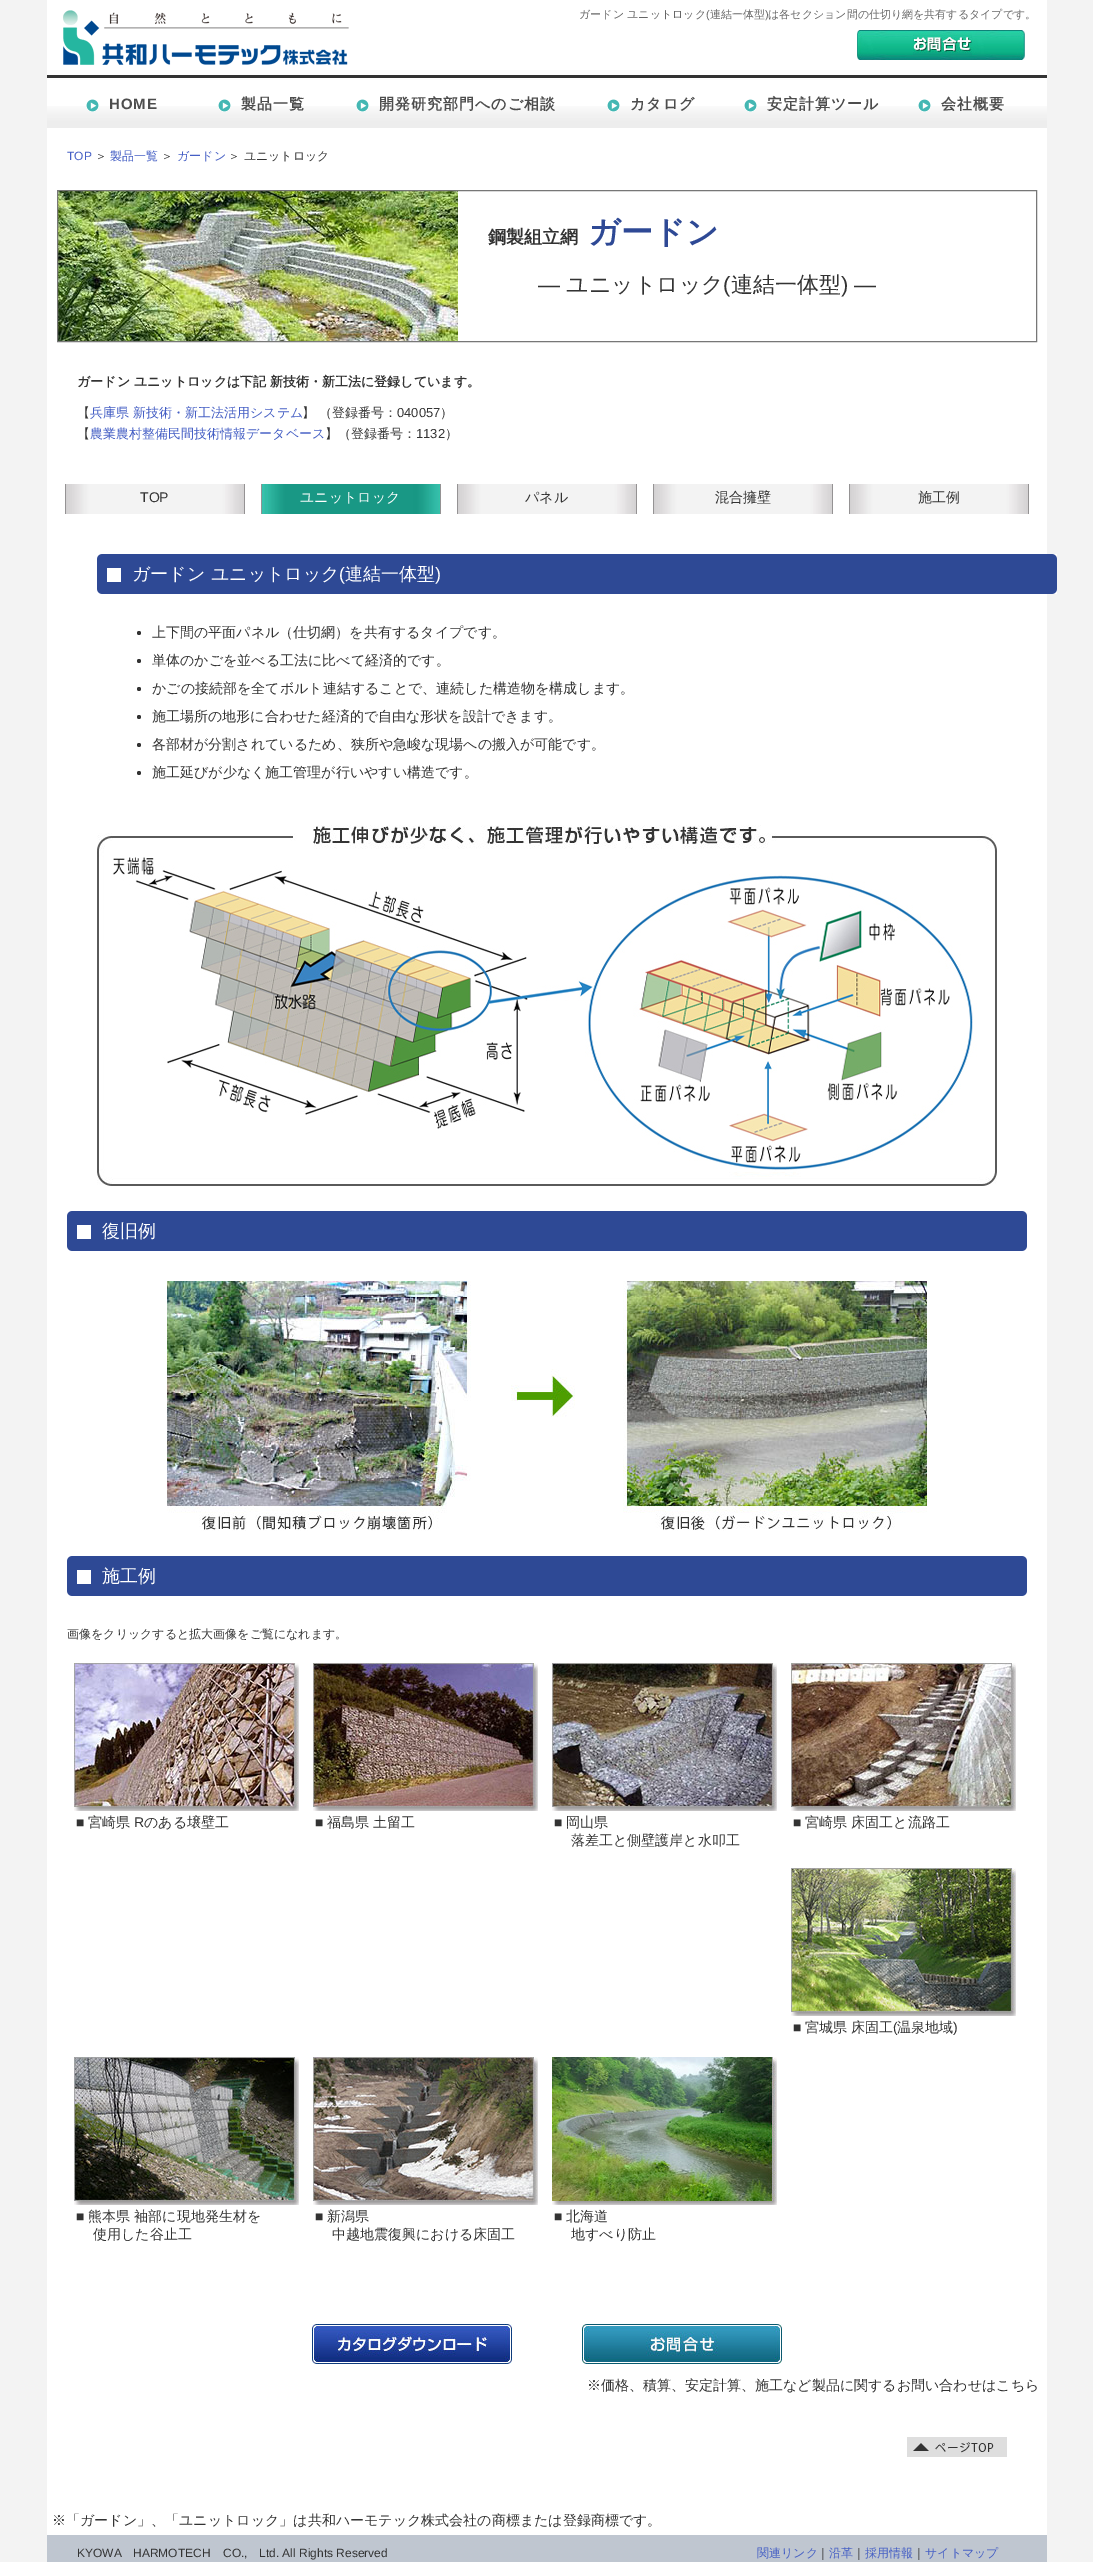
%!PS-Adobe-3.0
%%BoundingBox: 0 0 1093 2562
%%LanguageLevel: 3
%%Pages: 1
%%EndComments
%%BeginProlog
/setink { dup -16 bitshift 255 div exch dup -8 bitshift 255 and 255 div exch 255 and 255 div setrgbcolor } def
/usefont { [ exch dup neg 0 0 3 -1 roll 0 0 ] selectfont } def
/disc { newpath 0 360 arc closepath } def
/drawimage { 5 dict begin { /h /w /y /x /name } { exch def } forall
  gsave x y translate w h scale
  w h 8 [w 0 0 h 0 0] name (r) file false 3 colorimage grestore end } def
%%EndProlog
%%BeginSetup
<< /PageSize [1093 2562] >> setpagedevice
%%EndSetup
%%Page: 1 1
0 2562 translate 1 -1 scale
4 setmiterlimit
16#F3F3F3 setink
0 0 1093 2562 rectfill
16#FFFFFF setink
47 0 1000 2535 rectfill
16#333333 setink
47 75 1000 3 rectfill
(img1.raw) 63 10 286 55 drawimage
/WenQuanYiZenHei-Medium 11 usefont
16#666666 setink
579 18 moveto (ガードン ユニットロック) show
/LiberationSans-Regular 11 usefont
706 18 moveto (\() show
/WenQuanYiZenHei-Medium 11 usefont
710 18 moveto (連結一体型) show
/LiberationSans-Regular 11 usefont
765 18 moveto (\)) show
/WenQuanYiZenHei-Medium 11 usefont
768 18 moveto (は各セクション間の仕切り網を共有するタイプです。) show
(img2.raw) 857 30 168 30 drawimage
(img3.raw) 47 106 1000 22 drawimage
(img4.raw) 86 99 13 13 drawimage
/LiberationSans-Bold 15 usefont
16#4D4D4D setink
109 109 moveto 1 0 (HOME) ashow
(img4.raw) 218 99 13 13 drawimage
/WenQuanYiZenHei-Bold 15 usefont
241 109 moveto 1 0 (製品一覧) ashow
(img4.raw) 356 99 13 13 drawimage
379 109 moveto 1 0 (開発研究部門へのご相談) ashow
(img4.raw) 607 99 13 13 drawimage
630 109 moveto 1 0 (カタログ) ashow
(img4.raw) 744 99 13 13 drawimage
767 109 moveto 1 0 (安定計算ツール) ashow
(img4.raw) 918 99 13 13 drawimage
941 109 moveto 1 0 (会社概要) ashow
/LiberationSans-Regular 12 usefont
16#455FC5 setink
67 160 moveto (TOP) show
/WenQuanYiZenHei-Medium 12 usefont
16#333333 setink
95 160 moveto (＞) show
16#455FC5 setink
110 160 moveto (製品一覧) show
16#333333 setink
161 160 moveto (＞) show
16#455FC5 setink
177 160 moveto (ガードン) show
16#333333 setink
228 160 moveto (＞ ユニットロック) show
(img5.raw) 58 191 400 150 drawimage
16#777777 setink
57.5 190.5 979 151 rectstroke
/WenQuanYiZenHei-Bold 18 usefont
16#333333 setink
488 243 moveto (鋼製組立網) show
/WenQuanYiZenHei-Bold 32 usefont
16#2E4995 setink
588 243 moveto (ガードン) show
/LiberationSans-Regular 22 usefont
16#333333 setink
538 292 moveto (―) show
/WenQuanYiZenHei-Medium 22 usefont
566 292 moveto (ユニットロック) show
/LiberationSans-Regular 22 usefont
723 292 moveto (\() show
/WenQuanYiZenHei-Medium 22 usefont
731 292 moveto (連結一体型) show
/LiberationSans-Regular 22 usefont
841 292 moveto (\) ―) show
/WenQuanYiZenHei-Bold 13 usefont
77 386 moveto (ガードン ユニットロックは下記 新技術・新工法に登録しています。) show
/WenQuanYiZenHei-Medium 13 usefont
77 417 moveto (【) show
16#455FC5 setink
90 417 moveto (兵庫県 新技術・新工法活用システム) show
16#333333 setink
302 417 moveto (】 （登録番号：) show
/LiberationSans-Regular 13 usefont
397 417 moveto (040057) show
/WenQuanYiZenHei-Medium 13 usefont
440 417 moveto (）) show
77 438 moveto (【) show
16#455FC5 setink
90 438 moveto (農業農村整備民間技術情報データベース) show
16#333333 setink
325 438 moveto (】（登録番号：) show
/LiberationSans-Regular 13 usefont
416 438 moveto (1132) show
/WenQuanYiZenHei-Medium 13 usefont
445 438 moveto (）) show
(img6.raw) 65 484 180 30 drawimage
/LiberationSans-Regular 14 usefont
140 502 moveto (TOP) show
(img7.raw) 261 484 180 30 drawimage
/WenQuanYiZenHei-Medium 14 usefont
16#FFFFFF setink
300 502 moveto (ユニットロック) show
(img6.raw) 457 484 180 30 drawimage
16#333333 setink
525 502 moveto (パネル) show
(img6.raw) 653 484 180 30 drawimage
715 502 moveto (混合擁壁) show
(img6.raw) 849 484 180 30 drawimage
918 502 moveto (施工例) show
(img8.raw) 97 554 960 40 drawimage
/WenQuanYiZenHei-Medium 18 usefont
16#FFFFFF setink
132 580 moveto (ガードン ユニットロック) show
/LiberationSans-Regular 18 usefont
339 580 moveto (\() show
/WenQuanYiZenHei-Medium 18 usefont
345 580 moveto (連結一体型) show
/LiberationSans-Regular 18 usefont
435 580 moveto (\)) show
16#333333 setink
139 633 2 disc fill
/WenQuanYiZenHei-Medium 14 usefont
152 637 moveto (上下間の平面パネル（仕切網）を共有するタイプです。) show
139 661 2 disc fill
152 665 moveto (単体のかごを並べる工法に比べて経済的です。) show
139 689 2 disc fill
152 693 moveto (かごの接続部を全てボルト連結することで、連続した構造物を構成します。) show
139 717 2 disc fill
152 721 moveto (施工場所の地形に合わせた経済的で自由な形状を設計できます。) show
139 745 2 disc fill
152 749 moveto (各部材が分割されているため、狭所や急峻な現場への搬入が可能です。) show
139 773 2 disc fill
152 777 moveto (施工延びが少なく施工管理が行いやすい構造です。) show
(img9.raw) 97 825 900 361 drawimage
(img8.raw) 67 1211 960 40 drawimage
/WenQuanYiZenHei-Medium 18 usefont
16#FFFFFF setink
102 1237 moveto (復旧例) show
(img10.raw) 167 1281 760 250 drawimage
(img8.raw) 67 1556 960 40 drawimage
102 1582 moveto (施工例) show
/WenQuanYiZenHei-Medium 12 usefont
16#333333 setink
67 1638 moveto (画像をクリックすると拡大画像をご覧になれます。) show
(img11.raw) 74 1663 225 148 drawimage
/LiberationSans-Regular 14 usefont
76 1827 moveto (■) show
/WenQuanYiZenHei-Medium 14 usefont
88 1827 moveto (宮崎県) show
/LiberationSans-Regular 14 usefont
134 1827 moveto (R) show
/WenQuanYiZenHei-Medium 14 usefont
144 1827 moveto (のある壌壁工) show
(img12.raw) 313 1663 225 148 drawimage
/LiberationSans-Regular 14 usefont
315 1827 moveto (■) show
/WenQuanYiZenHei-Medium 14 usefont
327 1827 moveto (福島県 土留工) show
(img13.raw) 552 1663 225 148 drawimage
/LiberationSans-Regular 14 usefont
554 1827 moveto (■) show
/WenQuanYiZenHei-Medium 14 usefont
566 1827 moveto (岡山県) show
571 1845 moveto (落差工と側壁護岸と水叩工) show
(img14.raw) 791 1663 225 148 drawimage
/LiberationSans-Regular 14 usefont
793 1827 moveto (■) show
/WenQuanYiZenHei-Medium 14 usefont
805 1827 moveto (宮崎県 床固工と流路工) show
(img15.raw) 791 1868 225 148 drawimage
/LiberationSans-Regular 14 usefont
793 2032 moveto (■) show
/WenQuanYiZenHei-Medium 14 usefont
805 2032 moveto (宮城県 床固工) show
/LiberationSans-Regular 14 usefont
893 2032 moveto (\() show
/WenQuanYiZenHei-Medium 14 usefont
897 2032 moveto (温泉地域) show
/LiberationSans-Regular 14 usefont
953 2032 moveto (\)) show
(img16.raw) 74 2057 225 148 drawimage
76 2221 moveto (■) show
/WenQuanYiZenHei-Medium 14 usefont
88 2221 moveto (熊本県 袖部に現地発生材を) show
93 2239 moveto (使用した谷止工) show
(img17.raw) 313 2057 225 148 drawimage
/LiberationSans-Regular 14 usefont
315 2221 moveto (■) show
/WenQuanYiZenHei-Medium 14 usefont
327 2221 moveto (新潟県) show
332 2239 moveto (中越地震復興における床固工) show
(img18.raw) 552 2057 225 148 drawimage
/LiberationSans-Regular 14 usefont
554 2221 moveto (■) show
/WenQuanYiZenHei-Medium 14 usefont
566 2221 moveto (北海道) show
571 2239 moveto (地すべり防止) show
(img19.raw) 312 2324 200 40 drawimage
(img20.raw) 582 2324 200 40 drawimage
587 2390 moveto (※価格、積算、安定計算、施工など製品に関するお問い合わせはこちら) show
(img21.raw) 907 2437 100 20 drawimage
52 2525 moveto (※「ガードン」、「ユニットロック」は共和ハーモテック株式会社の商標または登録商標です。) show
16#BFC6D0 setink
47 2535 1000 27 rectfill
/LiberationSans-Regular 12 usefont
16#333333 setink
[
    [(KYOWA) 77 2557]
    [(HARMOTECH) 133 2557]
    [(CO.,) 223 2557]
    [(Ltd. All Rights Reserved) 259 2557]
] { aload pop moveto show } forall
/WenQuanYiZenHei-Medium 12 usefont
16#455FC5 setink
757 2557 moveto (関連リンク) show
16#333333 setink
817 2557 moveto (｜) show
16#455FC5 setink
829 2557 moveto (沿革) show
16#333333 setink
853 2557 moveto (｜) show
16#455FC5 setink
865 2557 moveto (採用情報) show
16#333333 setink
913 2557 moveto (｜) show
16#455FC5 setink
925 2557 moveto (サイトマップ) show
showpage
%%EOF
